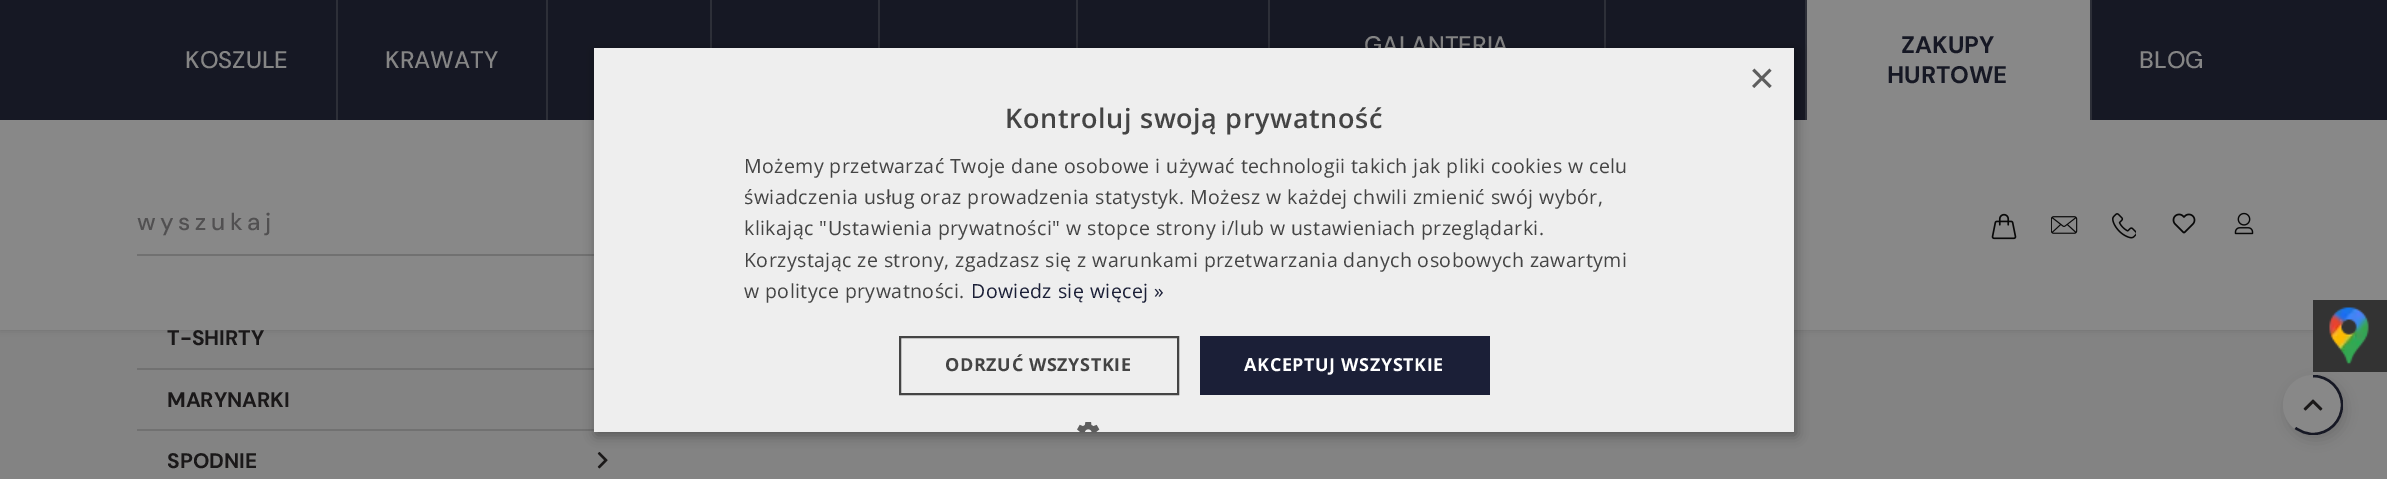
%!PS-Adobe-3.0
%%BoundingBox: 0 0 2387 479
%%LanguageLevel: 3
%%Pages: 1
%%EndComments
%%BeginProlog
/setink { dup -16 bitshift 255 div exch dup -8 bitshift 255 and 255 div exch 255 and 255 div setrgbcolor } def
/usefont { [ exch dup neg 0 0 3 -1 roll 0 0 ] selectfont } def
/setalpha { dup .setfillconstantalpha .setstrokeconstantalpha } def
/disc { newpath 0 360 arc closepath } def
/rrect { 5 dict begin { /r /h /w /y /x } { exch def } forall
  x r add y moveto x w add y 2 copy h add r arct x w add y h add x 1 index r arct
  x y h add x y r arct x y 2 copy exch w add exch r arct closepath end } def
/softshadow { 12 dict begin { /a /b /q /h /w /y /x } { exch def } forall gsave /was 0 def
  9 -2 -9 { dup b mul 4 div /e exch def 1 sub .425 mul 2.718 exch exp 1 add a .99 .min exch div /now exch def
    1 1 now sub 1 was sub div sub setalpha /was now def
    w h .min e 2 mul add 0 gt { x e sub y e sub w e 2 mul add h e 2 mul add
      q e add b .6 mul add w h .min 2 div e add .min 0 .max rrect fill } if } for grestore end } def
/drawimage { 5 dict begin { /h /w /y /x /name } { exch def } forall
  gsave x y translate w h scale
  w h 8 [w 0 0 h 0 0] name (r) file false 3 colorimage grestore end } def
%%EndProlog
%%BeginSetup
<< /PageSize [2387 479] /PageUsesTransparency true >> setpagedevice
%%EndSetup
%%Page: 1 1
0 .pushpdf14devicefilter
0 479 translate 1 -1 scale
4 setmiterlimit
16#838383 setink
0 0 2387 479 rectfill
16#090909 setink
0 0 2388 330 0 4 0.15 softshadow
[
    [0 120 2387 210 16#888888]
    [0 0 2387 120 16#161824]
    [336 0 2 120 16#2D2F38]
] { aload pop setink rectfill } forall
/DMSans-Medium 24 usefont
16#858585 setink
185 68 moveto (KOSZULE) show
16#2D2F38 setink
546 0 2 120 rectfill
16#858585 setink
385 68 moveto (KRAWATY) show
[
    [710 0 2 48 16#2D2F38]
    [878 0 2 48 16#2D2F38]
    [1076 0 2 48 16#2D2F38]
    [1268 0 2 48 16#2D2F38]
    [1604 0 2 48 16#2D2F38]
] { aload pop setink rectfill } forall
16#858585 setink
1364 53 moveto (GALANTERIA) show
[
    [1805 0 2 120 16#2D2F38]
    [1807 0 283 120 16#888888]
    [2090 0 2 120 16#2D2F38]
] { aload pop setink rectfill } forall
/DMSans-Bold 24 usefont
16#161824 setink
1901 53 moveto (ZAKUPY) show
1887 83 moveto (HURTOWE) show
/DMSans-Medium 24 usefont
16#858585 setink
2139 68 moveto (BLOG) show
16#717171 setink
137 254 457 2 rectfill
16#515051 setink
137 230 moveto 4.5 0 (wyszukaj) ashow
(img1.raw) 1991 213 26 27 drawimage
(img2.raw) 2051 216 27 18 drawimage
(img3.raw) 2112 213 24 26 drawimage
(img4.raw) 2172 213 24 21 drawimage
(img5.raw) 2234 212 20 23 drawimage
16#717171 setink
137 368 457 2 rectfill
/DMSans-Bold 21 usefont
16#1A1819 setink
167 345 moveto (T-SHIRTY) show
16#717171 setink
137 429 457 2 rectfill
16#1A1819 setink
167 407 moveto (MARYNARKI) show
167 468 moveto (SPODNIE) show
(img6.raw) 597 452 11 17 drawimage
16#090909 setink
2286 380 60 60 30 7.5 0.15 softshadow
16#888888 setink
2313 405 30 disc fill
gsave
2283 375 60 60 rectclip
16#161824 setink
2.4 setlinewidth
2313 376 moveto 2329 376 2342 389 2342 405 curveto 2342 421 2329 434 2313 434 curveto 2306.5 434 2300.5 431.5 2295.5 428 curveto stroke
grestore
(img7.raw) 2303 399 20 12 drawimage
16#000000 setink
596 51 1200 384 0 6 0.35 softshadow
16#EEEEEE setink
594 48 1200 384 rectfill
/LiberationSans-Regular 44 usefont
16#5E5E5E setink
1749 93 moveto (×) show
/OpenSans-SemiBold 27 usefont
16#444444 setink
1005 128 moveto 0.6 0 (Kontroluj swoją prywatność) ashow
/OpenSans-Regular 19.5 usefont
744 173 moveto 0.45 0 (Możemy przetwarzać Twoje dane osobowe i używać technologii takich jak pliki cookies w celu) ashow
744 204 moveto 0.45 0 (świadczenia usług oraz prowadzenia statystyk. Możesz w każdej chwili zmienić swój wybór,) ashow
744 235 moveto 0.45 0 (klikając "Ustawienia prywatności" w stopce strony i/lub w ustawieniach przeglądarki.) ashow
744 267 moveto 0.45 0 (Korzystając ze strony, zgadzasz się z warunkami przetwarzania danych osobowych zawartymi) ashow
744 298 moveto 0.45 0 (w polityce prywatności.) ashow
16#1B1F37 setink
971 298 moveto 0.45 0 (Dowiedz się więcej ») ashow
16#444444 setink
2 setlinewidth
900 337 278 57 rectstroke
/OpenSans-Bold 18 usefont
945 371 moveto 0.6 0 (ODRZUĆ WSZYSTKIE) ashow
16#1B1F37 setink
1200 336 290 59 rectfill
16#FFFFFF setink
1244 371 moveto 0.6 0 (AKCEPTUJ WSZYSTKIE) ashow
(img8.raw) 1077 422 23 10 drawimage
16#333333 setink
2313 300 74 72 rectfill
(img9.raw) 2329 307 40 58 drawimage
.poppdf14devicefilter showpage
%%EOF
